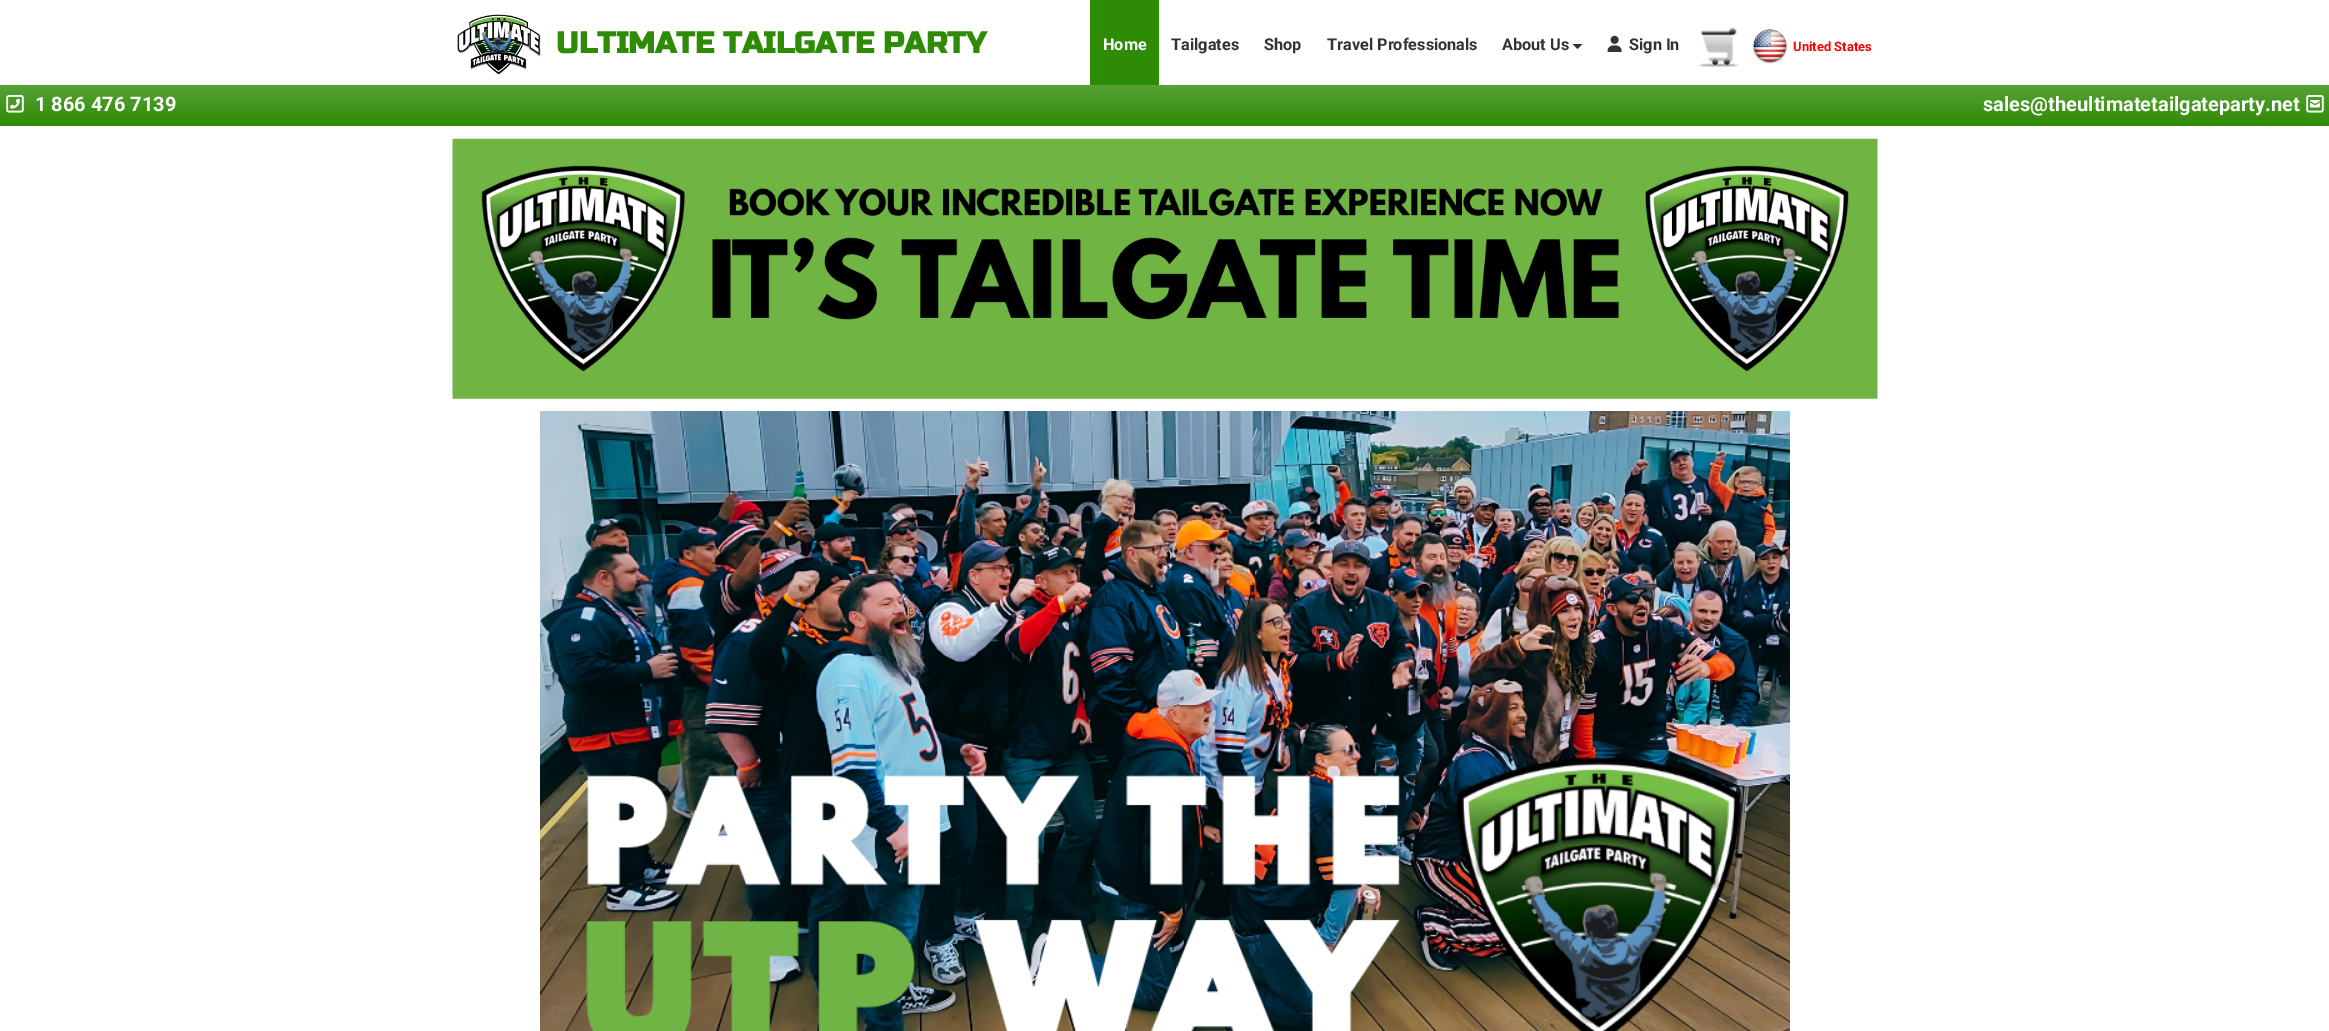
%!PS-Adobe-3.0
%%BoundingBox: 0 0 2329 1031
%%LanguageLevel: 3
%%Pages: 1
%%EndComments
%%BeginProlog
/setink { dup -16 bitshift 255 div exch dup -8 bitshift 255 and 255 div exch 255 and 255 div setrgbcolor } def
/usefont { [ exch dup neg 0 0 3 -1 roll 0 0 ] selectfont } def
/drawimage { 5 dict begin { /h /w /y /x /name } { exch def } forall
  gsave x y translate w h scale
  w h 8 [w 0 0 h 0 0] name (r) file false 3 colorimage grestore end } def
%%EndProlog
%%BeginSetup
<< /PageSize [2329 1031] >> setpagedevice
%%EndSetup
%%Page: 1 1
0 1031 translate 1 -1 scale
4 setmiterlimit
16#FFFFFF setink
0 0 2329 1031 rectfill
(img1.raw) 457 14 84 61 drawimage
/RussoOne-Bold 30 usefont
16#2E8B05 setink
556 53 moveto (ULTIMATE TAILGATE PARTY) show
1090 0 69 85 rectfill
/Roboto-Bold 16.25 usefont
16#FFFFFF setink
1103 50 moveto (Home) show
16#333333 setink
[
    [(Tailgates) 1171 50]
    [(Shop) 1264 50]
    [(Travel Professionals) 1327 50]
    [(About Us) 1502 50]
] { aload pop moveto show } forall
1572.5 44 moveto 1582.5 44 lineto 1577.5 49 lineto closepath fill
(img2.raw) 1607 35 15 17 drawimage
1629 50 moveto (Sign In) show
(img3.raw) 1699 27 39 41 drawimage
(img4.raw) 1752 29 36 35 drawimage
/Roboto-Bold 13 usefont
16#FF0000 setink
1793 51 moveto (United States) show
gsave 0 85 moveto 2329 85 lineto 2329 126 lineto 0 126 lineto closepath clip newpath
<< /ShadingType 2 /ColorSpace /DeviceRGB /Coords [1165 85 1165 126] /Extend [true true] /Function << /FunctionType 2 /Domain [0 1] /C0 [0.341 0.635 0.212] /C1 [0.18 0.545 0.02] /N 1 >> >> shfill grestore
(img5.raw) 6 95 18 18 drawimage
/Roboto-Bold 20 usefont
16#FFFFFF setink
35 111 moveto (1 866 476 7139) show
1983 111 moveto (sales@theultimatetailgateparty.net) show
(img6.raw) 2306 95 18 18 drawimage
(img7.raw) 452 138 1426 261 drawimage
(img8.raw) 540 411 1250 620 drawimage
showpage
%%EOF
